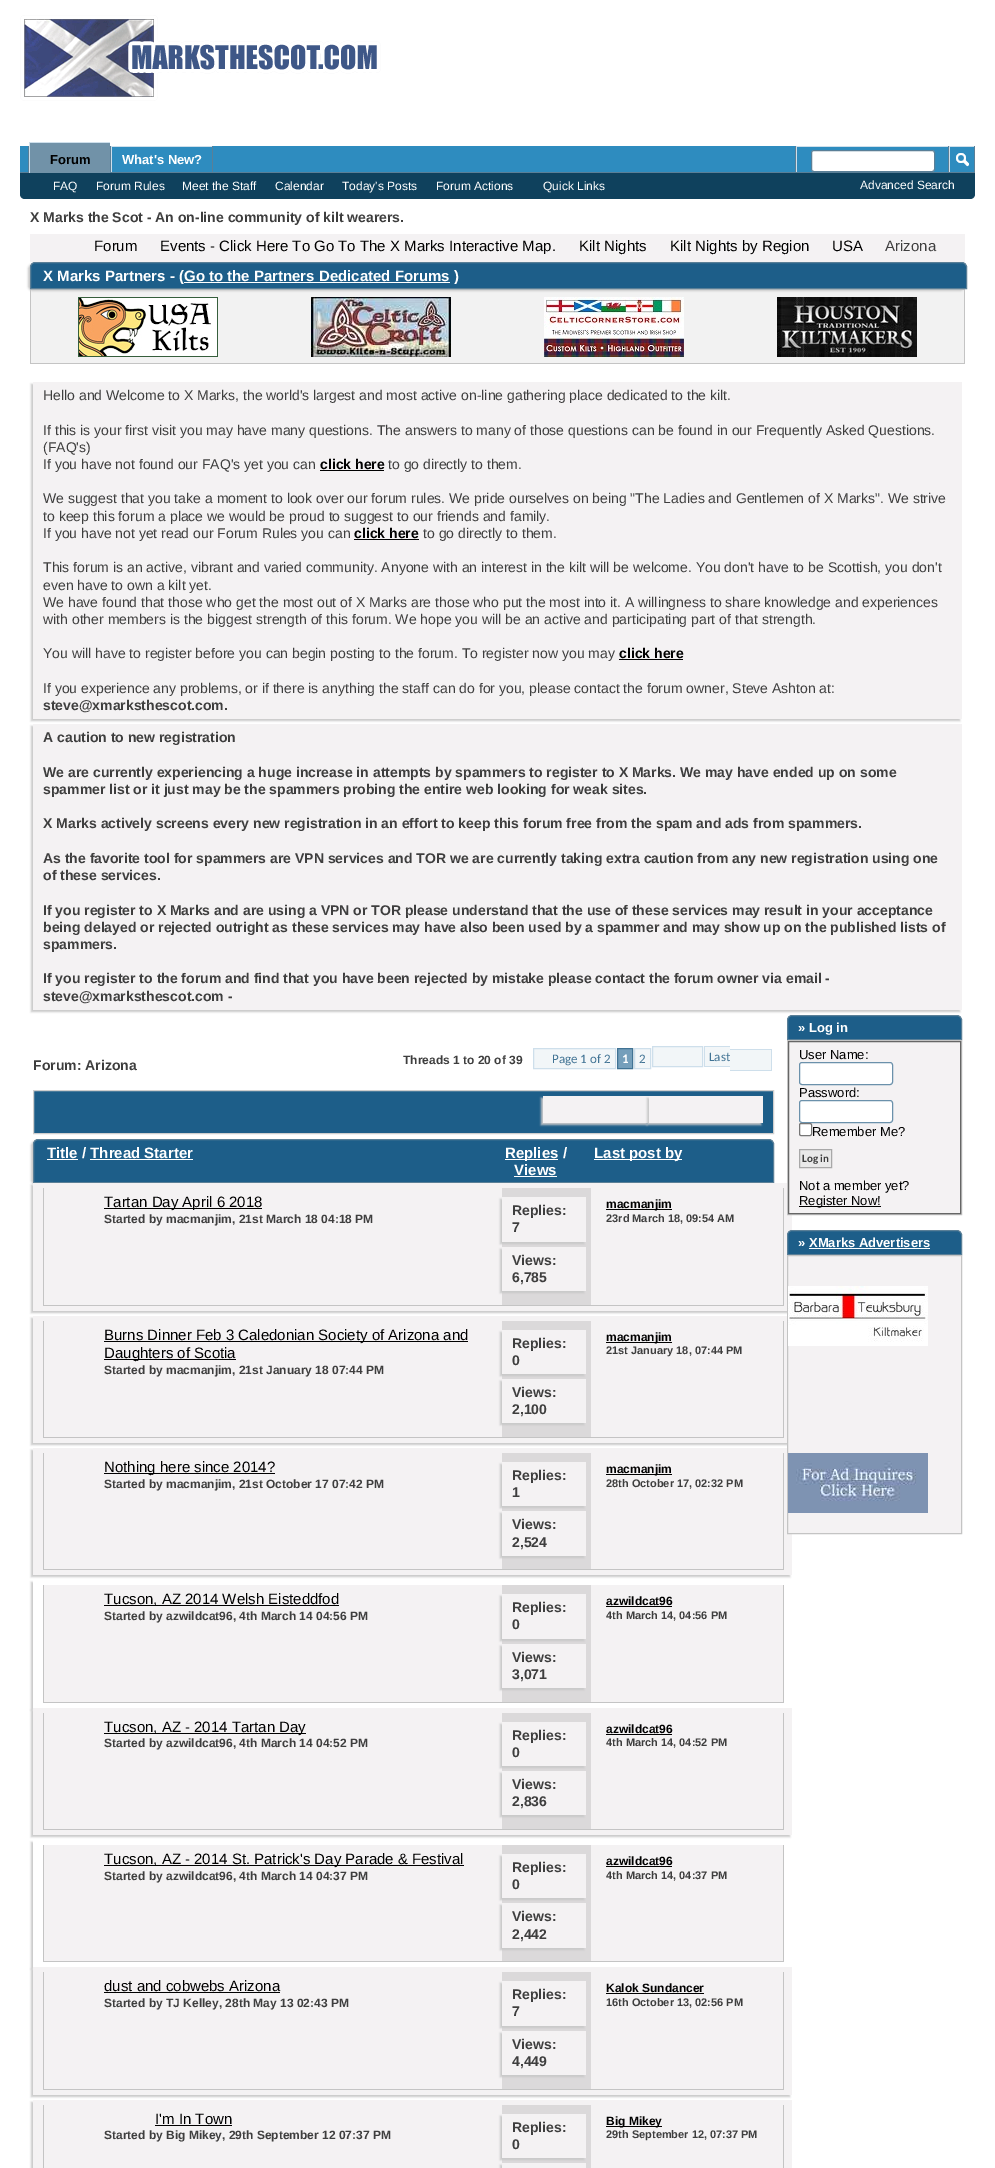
%!PS-Adobe-3.0
%%BoundingBox: 0 0 995 2168
%%LanguageLevel: 3
%%Pages: 1
%%EndComments
%%BeginProlog
/setink { dup -16 bitshift 255 div exch dup -8 bitshift 255 and 255 div exch 255 and 255 div setrgbcolor } def
/usefont { [ exch dup neg 0 0 3 -1 roll 0 0 ] selectfont } def
/setalpha { dup .setfillconstantalpha .setstrokeconstantalpha } def
/rrect { 5 dict begin { /r /h /w /y /x } { exch def } forall
  x r add y moveto x w add y 2 copy h add r arct x w add y h add x 1 index r arct
  x y h add x y r arct x y 2 copy exch w add exch r arct closepath end } def
/softshadow { 12 dict begin { /a /b /q /h /w /y /x } { exch def } forall gsave /was 0 def
  9 -2 -9 { dup b mul 4 div /e exch def 1 sub .425 mul 2.718 exch exp 1 add a .99 .min exch div /now exch def
    1 1 now sub 1 was sub div sub setalpha /was now def
    w h .min e 2 mul add 0 gt { x e sub y e sub w e 2 mul add h e 2 mul add
      q e add b .6 mul add w h .min 2 div e add .min 0 .max rrect fill } if } for grestore end } def
/drawimage { 5 dict begin { /h /w /y /x /name } { exch def } forall
  gsave x y translate w h scale
  w h 8 [w 0 0 h 0 0] name (r) file false 3 colorimage grestore end } def
%%EndProlog
%%BeginSetup
<< /PageSize [995 2168] /PageUsesTransparency true >> setpagedevice
%%EndSetup
%%Page: 1 1
0 .pushpdf14devicefilter
0 2168 translate 1 -1 scale
4 setmiterlimit
16#FFFFFF setink
0 0 995 2168 rectfill
(img1.raw) 20 15 361 86 drawimage
16#0F415D setink
20 146 moveto 975 146 lineto 975 194 lineto 975 197 973 199 970 199 curveto 25 199 lineto 22 199 20 197 20 194 curveto closepath fill
[
    [20 146 954 26 16#2E8CBF]
    [212 146 1 27 16#5A7F97]
    [111 146 101 1 16#CEDFEB]
    [111 146 1 27 16#CEDFEB]
] { aload pop setink rectfill } forall
/LiberationSans-Bold 13 usefont
16#FFFFFF setink
122 164 moveto (What's New?) show
[
    [110 146 1 26 16#5A7F97]
    [28 146 1 26 16#5A7F97]
    [20 172 955 1 16#5A7F97]
    [30 143 80 30 16#7192A8]
    [29 142 81 1 16#CEDFEB]
    [29 142 1 31 16#CEDFEB]
] { aload pop setink rectfill } forall
16#000000 setink
50 164 moveto (Forum) show
/LiberationSans-Regular 12 usefont
16#FFFFFF setink
[
    [(FAQ) 53 190]
    [(Forum Rules) 96 190]
    [(Meet the Staff) 182 190]
    [(Calendar) 275 190]
    [(Today's Posts) 342 190]
    [(Forum Actions) 436 190]
    [(Quick Links) 543 190]
] { aload pop moveto show } forall
[
    [795 146 1 26 16#5A7F97]
    [796 146 152 1 16#CEDFEB]
    [796 146 1 26 16#CEDFEB]
] { aload pop setink rectfill } forall
16#FFFFFF setink
811.5 150.5 123 21 2.5 rrect gsave fill grestore
16#5A7F97 setink
stroke
[
    [974 146 1 26 16#5A7F97]
    [948 146 1 26 16#5A7F97]
    [949 146 25 1 16#CEDFEB]
    [949 146 1 26 16#CEDFEB]
] { aload pop setink rectfill } forall
(img2.raw) 956 153 13 14 drawimage
16#FFFFFF setink
860 189 moveto (Advanced Search) show
/LiberationSans-Bold 14 usefont
16#3E3E3E setink
30 222 moveto (X Marks the Scot - An on-line community of kilt wearers.) show
16#F4F2F3 setink
30 234 935 28 rectfill
/LiberationSans-Regular 15 usefont
16#000000 setink
[
    [(Forum) 94 251]
    [(Events - Click Here To Go To The X Marks Interactive Map.) 160 251]
    [(Kilt Nights) 579 251]
    [(Kilt Nights by Region) 670 251]
    [(USA) 832 251]
] { aload pop moveto show } forall
16#3E3E3E setink
885 251 moveto (Arizona) show
[
    [31 290 933 73 16#F2F2F2]
    [30 289 935 1 16#C4C4C4]
    [964 289 1 75 16#C4C4C4]
    [30 363 935 1 16#C4C4C4]
    [30 289 1 75 16#C4C4C4]
] { aload pop setink rectfill } forall
16#C8C8C8 setink
28 264 937 27 5 1 1 softshadow
16#1D5E89 setink
35 262.5 moveto 962 262.5 lineto 964.5 262.5 966.5 264.5 966.5 267 curveto 966.5 288.5 lineto 30.5 288.5 lineto 30.5 267 lineto 30.5 264.5 32.5 262.5 35 262.5 curveto closepath gsave fill grestore
16#5A7F97 setink
stroke
/LiberationSans-Bold 15 usefont
16#FFFFFF setink
43 281 moveto (X Marks Partners - \(Go to the Partners Dedicated Forums \)) show
184 282 266 1 rectfill
(img3.raw) 78 297 140 60 drawimage
(img4.raw) 311 297 140 60 drawimage
(img5.raw) 544 297 140 60 drawimage
(img6.raw) 777 297 140 60 drawimage
16#C8C8C8 setink
31 384 929 337 0 1 1 softshadow
16#F4F2F3 setink
33 382 929 337 rectfill
/LiberationSans-Regular 14 usefont
16#3E3E3E setink
[
    [(Hello and Welcome to X Marks, the world's largest and most active on-line gathering place dedicated to the kilt.) 43 400]
    [(If this is your first visit you may have many questions. The answers to many of those questions can be found in our Frequently Asked Questions.) 43 435]
    [(\(FAQ's\)) 43 452]
    [(If you have not found our FAQ's yet you can) 43 469]
] { aload pop moveto show } forall
/LiberationSans-Bold 14 usefont
16#000000 setink
320 469 moveto (click here) show
320 470 64 1 rectfill
/LiberationSans-Regular 14 usefont
16#3E3E3E setink
[
    [(to go directly to them.) 388 469]
    [(We suggest that you take a moment to look over our forum rules. We pride ourselves on being "The Ladies and Gentlemen of X Marks". We strive) 43 503]
    [(to keep this forum a place we would be proud to suggest to our friends and family.) 43 521]
    [(If you have not yet read our Forum Rules you can) 43 538]
] { aload pop moveto show } forall
/LiberationSans-Bold 14 usefont
16#000000 setink
354 538 moveto (click here) show
354 539 65 1 rectfill
/LiberationSans-Regular 14 usefont
16#3E3E3E setink
[
    [(to go directly to them.) 423 538]
    [(This forum is an active, vibrant and varied community. Anyone with an interest in the kilt will be welcome. You don't have to be Scottish, you don't) 43 572]
    [(even have to own a kilt yet.) 43 590]
    [(We have found that those who get the most out of X Marks are those who put the most into it. A willingness to share knowledge and experiences) 43 607]
    [(with other members is the biggest strength of this forum. We hope you will be an active and participating part of that strength.) 43 624]
    [(You will have to register before you can begin posting to the forum. To register now you may) 43 658]
] { aload pop moveto show } forall
/LiberationSans-Bold 14 usefont
16#000000 setink
619 658 moveto (click here) show
619 659 64 1 rectfill
/LiberationSans-Regular 14 usefont
16#3E3E3E setink
43 693 moveto (If you experience any problems, or if there is anything the staff can do for you, please contact the forum owner, Steve Ashton at:) show
/LiberationSans-Bold 14 usefont
43 710 moveto (steve@xmarksthescot.com.) show
16#C8C8C8 setink
31 726 929 286 0 1 1 softshadow
16#F4F2F3 setink
33 724 929 286 rectfill
16#3E3E3E setink
[
    [(A caution to new registration) 43 742]
    [(We are currently experiencing a huge increase in attempts by spammers to register to X Marks. We may have ended up on some) 43 777]
    [(spammer list or it just may be the spammers probing the entire web looking for weak sites.) 43 794]
    [(X Marks actively screens every new registration in an effort to keep this forum free from the spam and ads from spammers.) 43 828]
    [(As the favorite tool for spammers are VPN services and TOR we are currently taking extra caution from any new registration using one) 43 863]
    [(of these services.) 43 880]
    [(If you register to X Marks and are using a VPN or TOR please understand that the use of these services may result in your acceptance) 43 915]
    [(being delayed or rejected outright as these services may have also been used by a spammer and may show up on the published lists of) 43 932]
    [(spammers.) 43 949]
    [(If you register to the forum and find that you have been rejected by mistake please contact the forum owner via email -) 43 983]
    [(steve@xmarksthescot.com -) 43 1001]
    [(Forum: Arizona) 33 1070]
] { aload pop moveto show } forall
/LiberationSans-Bold 12 usefont
403 1064 moveto (Threads 1 to 20 of 39) show
16#F2F6F8 setink
533.5 1048.5 moveto 615.5 1048.5 lineto 615.5 1068.5 lineto 533.5 1068.5 lineto closepath gsave fill grestore
16#CEDFEB setink
stroke
/Carlito-Regular 13 usefont
16#417394 setink
552 1063 moveto (Page 1 of 2) show
16#759FBB setink
617.5 1048.5 moveto 632.5 1048.5 lineto 632.5 1068.5 lineto 617.5 1068.5 lineto closepath gsave fill grestore
16#417394 setink
stroke
/Carlito-Bold 13 usefont
16#FFFFFF setink
622 1063 moveto (1) show
16#F2F6F8 setink
634.5 1048.5 moveto 650.5 1048.5 lineto 650.5 1068.5 lineto 634.5 1068.5 lineto closepath gsave fill grestore
16#CEDFEB setink
stroke
/Carlito-Regular 13 usefont
16#417394 setink
639 1063 moveto (2) show
16#F2F6F8 setink
652.5 1046.5 moveto 702.5 1046.5 lineto 702.5 1066.5 lineto 652.5 1066.5 lineto closepath gsave fill grestore
16#CEDFEB setink
stroke
16#F2F6F8 setink
705 1047 25 19 rectfill
16#417394 setink
709 1061 moveto (Last) show
[
    [704 1046 26 1 16#CEDFEB]
    [704 1066 26 1 16#CEDFEB]
    [704 1046 1 21 16#CEDFEB]
    [730 1050 41 20 16#F2F6F8]
    [730 1049 42 1 16#CEDFEB]
    [771 1049 1 22 16#CEDFEB]
    [730 1070 42 1 16#CEDFEB]
] { aload pop setink rectfill } forall
16#1D5E89 setink
33.5 1090.5 moveto 773.5 1090.5 lineto 773.5 1133.5 lineto 33.5 1133.5 lineto closepath gsave fill grestore
16#CECECE setink
stroke
16#C8C8C8 setink
541 1098 106 27 0 1 1 softshadow
16#F4F2F3 setink
543 1096 106 27 rectfill
16#C8C8C8 setink
647 1098 114 27 0 1 1 softshadow
16#F4F2F3 setink
649 1096 114 27 rectfill
16#C8C8C8 setink
31 1141 741 44 5 1 1 softshadow
16#1D5E89 setink
38 1139.5 moveto 769 1139.5 lineto 771.5 1139.5 773.5 1141.5 773.5 1144 curveto 773.5 1182.5 lineto 33.5 1182.5 lineto 33.5 1144 lineto 33.5 1141.5 35.5 1139.5 38 1139.5 curveto closepath gsave fill grestore
16#5A7F97 setink
stroke
/LiberationSans-Bold 15 usefont
16#FFFFFF setink
47 1158 moveto (Title / Thread Starter) show
[
    [47 1159 31 1 16#FFFFFF]
    [90 1159 103 1 16#FFFFFF]
    [505 1159 53 1 16#FFFFFF]
] { aload pop setink rectfill } forall
505 1158 moveto (Replies /) show
514 1175 moveto (Views) show
514 1176 43 1 rectfill
594 1159 88 1 rectfill
594 1158 moveto (Last post by) show
16#C8C8C8 setink
31 1185 759 128 0 1 1 softshadow
[
    [33 1183 759 128 16#F4F2F3]
    [783 1188 1 118 16#C4C4C4]
    [43 1305 741 1 16#C4C4C4]
    [43 1188 1 118 16#C4C4C4]
    [104 1208 158 1 16#000000]
] { aload pop setink rectfill } forall
/LiberationSans-Regular 15 usefont
104 1207 moveto (Tartan Day April 6 2018) show
/LiberationSans-Bold 12 usefont
16#3E3E3E setink
104 1223 moveto (Started by macmanjim, 21st March 18 04:18 PM) show
16#DBD9DA setink
502 1188 89 117 rectfill
16#C8C8C8 setink
500 1199 84 45 0 1 1 softshadow
16#F4F2F3 setink
502 1197 84 45 rectfill
/LiberationSans-Bold 14 usefont
16#3E3E3E setink
512 1215 moveto (Replies:) show
512 1232 moveto (7) show
16#C8C8C8 setink
500 1249 84 44 0 1 1 softshadow
16#F4F2F3 setink
502 1247 84 44 rectfill
16#3E3E3E setink
512 1265 moveto (Views:) show
512 1282 moveto (6,785) show
16#000000 setink
606 1209 66 1 rectfill
/LiberationSans-Bold 12 usefont
606 1208 moveto (macmanjim) show
/LiberationSans-Bold 11 usefont
16#3E3E3E setink
606 1222 moveto (23rd March 18, 09:54 AM) show
16#C8C8C8 setink
31 1318 759 127 0 1 1 softshadow
[
    [33 1316 754 127 16#F4F2F3]
    [783 1321 1 117 16#C4C4C4]
    [43 1437 741 1 16#C4C4C4]
    [43 1321 1 117 16#C4C4C4]
    [104 1341 364 1 16#000000]
] { aload pop setink rectfill } forall
/LiberationSans-Regular 15 usefont
104 1340 moveto (Burns Dinner Feb 3 Caledonian Society of Arizona and) show
104 1359 132 1 rectfill
104 1358 moveto (Daughters of Scotia) show
/LiberationSans-Bold 12 usefont
16#3E3E3E setink
104 1374 moveto (Started by macmanjim, 21st January 18 07:44 PM) show
16#DBD9DA setink
502 1321 89 116 rectfill
16#C8C8C8 setink
500 1332 84 44 0 1 1 softshadow
16#F4F2F3 setink
502 1330 84 44 rectfill
/LiberationSans-Bold 14 usefont
16#3E3E3E setink
512 1348 moveto (Replies:) show
512 1365 moveto (0) show
16#C8C8C8 setink
500 1381 84 44 0 1 1 softshadow
16#F4F2F3 setink
502 1379 84 44 rectfill
16#3E3E3E setink
512 1397 moveto (Views:) show
512 1414 moveto (2,100) show
16#000000 setink
606 1342 66 1 rectfill
/LiberationSans-Bold 12 usefont
606 1341 moveto (macmanjim) show
/LiberationSans-Bold 11 usefont
16#3E3E3E setink
606 1354 moveto (21st January 18, 07:44 PM) show
16#C8C8C8 setink
31 1450 759 127 0 1 1 softshadow
[
    [33 1448 759 127 16#F4F2F3]
    [783 1453 1 117 16#C4C4C4]
    [43 1569 741 1 16#C4C4C4]
    [43 1453 1 117 16#C4C4C4]
    [104 1473 171 1 16#000000]
] { aload pop setink rectfill } forall
/LiberationSans-Regular 15 usefont
104 1472 moveto (Nothing here since 2014?) show
/LiberationSans-Bold 12 usefont
16#3E3E3E setink
104 1488 moveto (Started by macmanjim, 21st October 17 07:42 PM) show
16#DBD9DA setink
502 1453 89 116 rectfill
16#C8C8C8 setink
500 1464 84 44 0 1 1 softshadow
16#F4F2F3 setink
502 1462 84 44 rectfill
/LiberationSans-Bold 14 usefont
16#3E3E3E setink
512 1480 moveto (Replies:) show
512 1497 moveto (1) show
16#C8C8C8 setink
500 1513 84 45 0 1 1 softshadow
16#F4F2F3 setink
502 1511 84 45 rectfill
16#3E3E3E setink
512 1529 moveto (Views:) show
512 1547 moveto (2,524) show
16#000000 setink
606 1474 66 1 rectfill
/LiberationSans-Bold 12 usefont
606 1473 moveto (macmanjim) show
/LiberationSans-Bold 11 usefont
16#3E3E3E setink
606 1487 moveto (28th October 17, 02:32 PM) show
gsave
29 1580 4 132 rectclip
16#C8C8C8 setink
31 1582 759 128 0 1 1 softshadow
grestore
[
    [44 1585 739 117 16#F4F2F3]
    [783 1585 1 118 16#C4C4C4]
    [43 1702 741 1 16#C4C4C4]
    [43 1585 1 118 16#C4C4C4]
    [104 1605 235 1 16#000000]
] { aload pop setink rectfill } forall
/LiberationSans-Regular 15 usefont
104 1604 moveto (Tucson, AZ 2014 Welsh Eisteddfod) show
/LiberationSans-Bold 12 usefont
16#3E3E3E setink
104 1620 moveto (Started by azwildcat96, 4th March 14 04:56 PM) show
16#DBD9DA setink
502 1585 89 117 rectfill
16#C8C8C8 setink
500 1596 84 45 0 1 1 softshadow
16#F4F2F3 setink
502 1594 84 45 rectfill
/LiberationSans-Bold 14 usefont
16#3E3E3E setink
512 1612 moveto (Replies:) show
512 1629 moveto (0) show
16#C8C8C8 setink
500 1646 84 44 0 1 1 softshadow
16#F4F2F3 setink
502 1644 84 44 rectfill
16#3E3E3E setink
512 1662 moveto (Views:) show
512 1679 moveto (3,071) show
/LiberationSans-Bold 12 usefont
16#000000 setink
606 1605 moveto (azwildcat96) show
606 1606 66 1 rectfill
/LiberationSans-Bold 11 usefont
16#3E3E3E setink
606 1619 moveto (4th March 14, 04:56 PM) show
16#C8C8C8 setink
31 1710 759 127 0 1 1 softshadow
[
    [33 1708 759 127 16#F4F2F3]
    [783 1713 1 117 16#C4C4C4]
    [43 1829 741 1 16#C4C4C4]
    [43 1713 1 117 16#C4C4C4]
    [104 1733 202 1 16#000000]
] { aload pop setink rectfill } forall
/LiberationSans-Regular 15 usefont
104 1732 moveto (Tucson, AZ - 2014 Tartan Day) show
/LiberationSans-Bold 12 usefont
16#3E3E3E setink
104 1747 moveto (Started by azwildcat96, 4th March 14 04:52 PM) show
16#DBD9DA setink
502 1713 89 116 rectfill
16#C8C8C8 setink
500 1724 84 44 0 1 1 softshadow
16#F4F2F3 setink
502 1722 84 44 rectfill
/LiberationSans-Bold 14 usefont
16#3E3E3E setink
512 1740 moveto (Replies:) show
512 1757 moveto (0) show
16#C8C8C8 setink
500 1773 84 44 0 1 1 softshadow
16#F4F2F3 setink
502 1771 84 44 rectfill
16#3E3E3E setink
512 1789 moveto (Views:) show
512 1806 moveto (2,836) show
/LiberationSans-Bold 12 usefont
16#000000 setink
606 1733 moveto (azwildcat96) show
606 1734 66 1 rectfill
/LiberationSans-Bold 11 usefont
16#3E3E3E setink
606 1746 moveto (4th March 14, 04:52 PM) show
gsave
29 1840 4 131 rectclip
16#C8C8C8 setink
31 1842 759 127 0 1 1 softshadow
grestore
[
    [44 1845 739 116 16#F4F2F3]
    [783 1845 1 117 16#C4C4C4]
    [43 1961 741 1 16#C4C4C4]
    [43 1845 1 117 16#C4C4C4]
    [104 1865 360 1 16#000000]
] { aload pop setink rectfill } forall
/LiberationSans-Regular 15 usefont
104 1864 moveto (Tucson, AZ - 2014 St. Patrick's Day Parade & Festival) show
/LiberationSans-Bold 12 usefont
16#3E3E3E setink
104 1880 moveto (Started by azwildcat96, 4th March 14 04:37 PM) show
16#DBD9DA setink
502 1845 89 116 rectfill
16#C8C8C8 setink
500 1856 84 44 0 1 1 softshadow
16#F4F2F3 setink
502 1854 84 44 rectfill
/LiberationSans-Bold 14 usefont
16#3E3E3E setink
512 1872 moveto (Replies:) show
512 1889 moveto (0) show
16#C8C8C8 setink
500 1905 84 45 0 1 1 softshadow
16#F4F2F3 setink
502 1903 84 45 rectfill
16#3E3E3E setink
512 1921 moveto (Views:) show
512 1939 moveto (2,442) show
/LiberationSans-Bold 12 usefont
16#000000 setink
606 1865 moveto (azwildcat96) show
606 1866 66 1 rectfill
/LiberationSans-Bold 11 usefont
16#3E3E3E setink
606 1879 moveto (4th March 14, 04:37 PM) show
16#C8C8C8 setink
31 1969 759 128 0 1 1 softshadow
[
    [33 1967 759 128 16#F4F2F3]
    [783 1972 1 118 16#C4C4C4]
    [43 2089 741 1 16#C4C4C4]
    [43 1972 1 118 16#C4C4C4]
] { aload pop setink rectfill } forall
/LiberationSans-Regular 15 usefont
16#000000 setink
104 1991 moveto (dust and cobwebs Arizona) show
104 1992 176 1 rectfill
/LiberationSans-Bold 12 usefont
16#3E3E3E setink
104 2007 moveto (Started by TJ Kelley, 28th May 13 02:43 PM) show
16#DBD9DA setink
502 1972 89 117 rectfill
16#C8C8C8 setink
500 1983 84 45 0 1 1 softshadow
16#F4F2F3 setink
502 1981 84 45 rectfill
/LiberationSans-Bold 14 usefont
16#3E3E3E setink
512 1999 moveto (Replies:) show
512 2016 moveto (7) show
16#C8C8C8 setink
500 2033 84 44 0 1 1 softshadow
16#F4F2F3 setink
502 2031 84 44 rectfill
16#3E3E3E setink
512 2049 moveto (Views:) show
512 2066 moveto (4,449) show
/LiberationSans-Bold 12 usefont
16#000000 setink
606 1992 moveto (Kalok Sundancer) show
606 1993 98 1 rectfill
/LiberationSans-Bold 11 usefont
16#3E3E3E setink
606 2006 moveto (16th October 13, 02:56 PM) show
16#C8C8C8 setink
31 2102 759 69 0 1 1 softshadow
[
    [33 2100 759 68 16#F4F2F3]
    [783 2105 1 63 16#C4C4C4]
    [43 2105 1 63 16#C4C4C4]
] { aload pop setink rectfill } forall
/LiberationSans-Regular 15 usefont
16#000000 setink
155 2124 moveto (I'm In Town) show
155 2125 77 1 rectfill
/LiberationSans-Bold 12 usefont
16#3E3E3E setink
104 2139 moveto (Started by Big Mikey, 29th September 12 07:37 PM) show
16#DBD9DA setink
502 2105 89 63 rectfill
16#C8C8C8 setink
500 2116 84 44 0 1 1 softshadow
16#F4F2F3 setink
502 2114 84 44 rectfill
/LiberationSans-Bold 14 usefont
16#3E3E3E setink
512 2132 moveto (Replies:) show
512 2149 moveto (0) show
16#C8C8C8 setink
500 2165 84 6 0 1 1 softshadow
16#F4F2F3 setink
502 2163 84 5 rectfill
16#000000 setink
606 2126 56 1 rectfill
/LiberationSans-Bold 12 usefont
606 2125 moveto (Big Mikey) show
/LiberationSans-Bold 11 usefont
16#3E3E3E setink
606 2138 moveto (29th September 12, 07:37 PM) show
16#1D5E89 setink
792 1015.5 moveto 957 1015.5 lineto 959.5 1015.5 961.5 1017.5 961.5 1020 curveto 961.5 1039.5 lineto 787.5 1039.5 lineto 787.5 1020 lineto 787.5 1017.5 789.5 1015.5 792 1015.5 curveto closepath gsave fill grestore
16#5A7F97 setink
stroke
/LiberationSans-Bold 13 usefont
16#FFFFFF setink
798 1032 moveto (» Log in) show
16#F4F2F3 setink
789 1042 171 171 rectfill
16#C4C4C4 setink
787.5 1040.5 174 174 rectstroke
16#666666 setink
788.5 1041.5 172 172 rectstroke
/LiberationSans-Regular 13 usefont
16#000000 setink
799 1059 moveto (User Name:) show
16#FFFFFF setink
799.5 1062.5 93 22 2.5 rrect gsave fill grestore
16#6B91AB setink
stroke
16#000000 setink
799 1097 moveto (Password:) show
16#FFFFFF setink
799.5 1100.5 93 22 2.5 rrect gsave fill grestore
16#6B91AB setink
stroke
16#FFFFFF setink
799.5 1123.5 12 12 1.5 rrect gsave fill grestore
16#767676 setink
stroke
16#000000 setink
812 1136 moveto (Remember Me?) show
16#E9E9E9 setink
799.5 1149.5 moveto 831.5 1149.5 lineto 831.5 1167.5 lineto 799.5 1167.5 lineto closepath gsave fill grestore
16#A8A8A8 setink
stroke
/Carlito-Bold 11 usefont
16#3E3E3E setink
802 1162 moveto (Log in) show
/LiberationSans-Regular 13 usefont
16#000000 setink
799 1190 moveto (Not a member yet?) show
799 1206 82 1 rectfill
799 1205 moveto (Register Now!) show
16#1D5E89 setink
792 1230.5 moveto 957 1230.5 lineto 959.5 1230.5 961.5 1232.5 961.5 1235 curveto 961.5 1254.5 lineto 787.5 1254.5 lineto 787.5 1235 lineto 787.5 1232.5 789.5 1230.5 792 1230.5 curveto closepath gsave fill grestore
16#5A7F97 setink
stroke
/LiberationSans-Bold 13 usefont
16#FFFFFF setink
798 1247 moveto (» XMarks Advertisers) show
809 1248 121 1 rectfill
16#F4F2F3 setink
787.5 1255.5 moveto 961.5 1255.5 lineto 961.5 1533.5 lineto 787.5 1533.5 lineto closepath gsave fill grestore
16#C4C4C4 setink
stroke
(img7.raw) 788 1286 140 60 drawimage
(img8.raw) 788 1453 140 60 drawimage
.poppdf14devicefilter showpage
%%EOF
